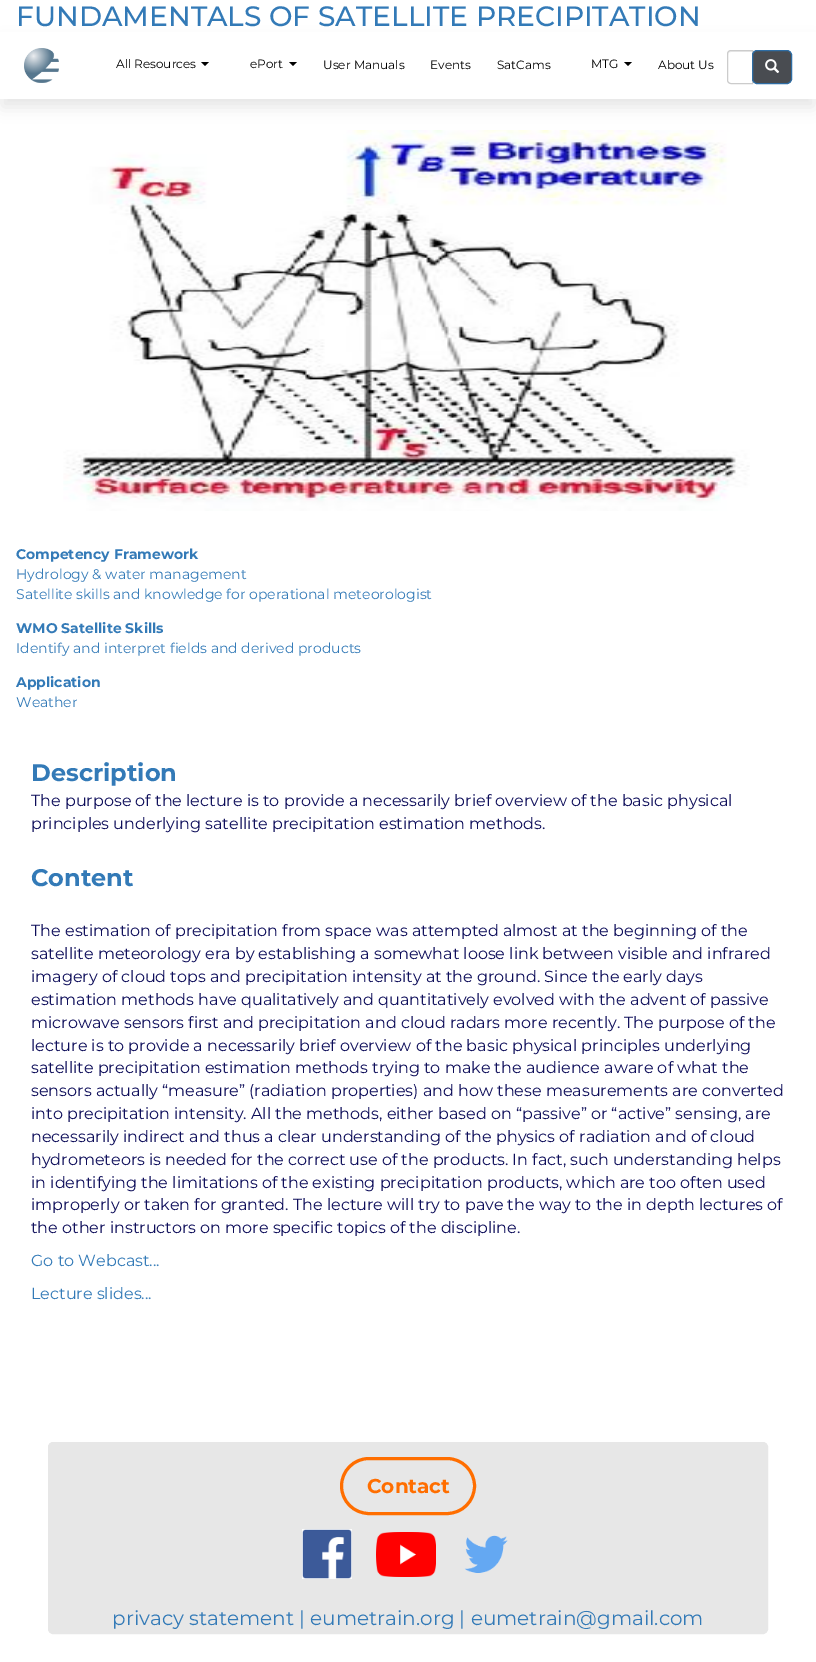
%!PS-Adobe-3.0
%%BoundingBox: 0 0 816 1662
%%LanguageLevel: 3
%%Pages: 1
%%EndComments
%%BeginProlog
/setink { dup -16 bitshift 255 div exch dup -8 bitshift 255 and 255 div exch 255 and 255 div setrgbcolor } def
/usefont { [ exch dup neg 0 0 3 -1 roll 0 0 ] selectfont } def
/setalpha { dup .setfillconstantalpha .setstrokeconstantalpha } def
/rrect { 5 dict begin { /r /h /w /y /x } { exch def } forall
  x r add y moveto x w add y 2 copy h add r arct x w add y h add x 1 index r arct
  x y h add x y r arct x y 2 copy exch w add exch r arct closepath end } def
/softshadow { 12 dict begin { /a /b /q /h /w /y /x } { exch def } forall gsave /was 0 def
  9 -2 -9 { dup b mul 4 div /e exch def 1 sub .425 mul 2.718 exch exp 1 add a .99 .min exch div /now exch def
    1 1 now sub 1 was sub div sub setalpha /was now def
    w h .min e 2 mul add 0 gt { x e sub y e sub w e 2 mul add h e 2 mul add
      q e add b .6 mul add w h .min 2 div e add .min 0 .max rrect fill } if } for grestore end } def
/drawimage { 5 dict begin { /h /w /y /x /name } { exch def } forall
  gsave x y translate w h scale
  w h 8 [w 0 0 h 0 0] name (r) file false 3 colorimage grestore end } def
%%EndProlog
%%BeginSetup
<< /PageSize [816 1662] /PageUsesTransparency true >> setpagedevice
%%EndSetup
%%Page: 1 1
0 .pushpdf14devicefilter
0 1662 translate 1 -1 scale
4 setmiterlimit
16#FFFFFF setink
0 0 816 1662 rectfill
/Montserrat-Medium 28 usefont
16#337AB7 setink
16 26 moveto (FUNDAMENTALS OF SATELLITE PRECIPITATION) show
(img1.raw) 63 130 687 381 drawimage
/Montserrat-Bold 14 usefont
16 559 moveto (Competency Framework) show
/Montserrat-Regular 14 usefont
16 579 moveto (Hydrology & water management) show
16 599 moveto (Satellite skills and knowledge for operational meteorologist) show
/Montserrat-Bold 14 usefont
16 633 moveto (WMO Satellite Skills) show
/Montserrat-Regular 14 usefont
16 653 moveto (Identify and interpret fields and derived products) show
/Montserrat-Bold 14 usefont
16 687 moveto (Application) show
/Montserrat-Regular 14 usefont
16 707 moveto (Weather) show
/Montserrat-Bold 24 usefont
31 781 moveto (Description) show
/Montserrat-Regular 16 usefont
16#0E0E5A setink
31 806 moveto (The purpose of the lecture is to provide a necessarily brief overview of the basic physical) show
31 829 moveto (principles underlying satellite precipitation estimation methods.) show
/Montserrat-Bold 24 usefont
16#337AB7 setink
31 886 moveto (Content) show
/Montserrat-Regular 16 usefont
16#0E0E5A setink
[
    [(The estimation of precipitation from space was attempted almost at the beginning of the) 31 936]
    [(satellite meteorology era by establishing a somewhat loose link between visible and infrared) 31 959]
    [(imagery of cloud tops and precipitation intensity at the ground. Since the early days) 31 982]
    [(estimation methods have qualitatively and quantitatively evolved with the advent of passive) 31 1005]
    [(microwave sensors first and precipitation and cloud radars more recently. The purpose of the) 31 1028]
    [(lecture is to provide a necessarily brief overview of the basic physical principles underlying) 31 1051]
    [(satellite precipitation estimation methods trying to make the audience aware of what the) 31 1073]
    [(sensors actually “measure” \(radiation properties\) and how these measurements are converted) 31 1096]
    [(into precipitation intensity. All the methods, either based on “passive” or “active” sensing, are) 31 1119]
    [(necessarily indirect and thus a clear understanding of the physics of radiation and of cloud) 31 1142]
    [(hydrometeors is needed for the correct use of the products. In fact, such understanding helps) 31 1165]
    [(in identifying the limitations of the existing precipitation products, which are too often used) 31 1188]
    [(improperly or taken for granted. The lecture will try to pave the way to the in depth lectures of) 31 1210]
    [(the other instructors on more specific topics of the discipline.) 31 1233]
] { aload pop moveto show } forall
16#337AB7 setink
31 1266 moveto (Go to Webcast...) show
31 1299 moveto (Lecture slides...) show
16#000000 setink
2 42 812 65 0 7.5 0.1 softshadow
16#FFFFFF setink
0 32 816 67 rectfill
(img2.raw) 24 48 35 35 drawimage
/Montserrat-Regular 12 usefont
16#000000 setink
116 68 moveto (All Resources) show
201 62 moveto 209 62 lineto 205 66 lineto closepath fill
250 68 moveto (ePort) show
289 62 moveto 297 62 lineto 293 66 lineto closepath fill
[
    [(User Manuals) 323 69]
    [(Events) 430 69]
    [(SatCams) 497 69]
    [(MTG) 591 68]
] { aload pop moveto show } forall
624 62 moveto 632 62 lineto 628 66 lineto closepath fill
658 69 moveto (About Us) show
16#ECECEC setink
731 52 moveto 752 52 lineto 752 51 lineto 738 51 lineto 733.5 51 728 49 728 55 curveto 728 53 729 52 731 52 curveto closepath fill
16#CCCCCC setink
731 50.5 moveto 752.5 50.5 lineto 752.5 83.5 lineto 731 83.5 lineto 729 83.5 727.5 82 727.5 80 curveto 727.5 54 lineto 727.5 52 729 50.5 731 50.5 curveto closepath stroke
16#494C51 setink
752.5 50.5 39 33 4.5 rrect gsave fill grestore
16#2E6DA4 setink
stroke
(img3.raw) 765 59 15 14 drawimage
16#E7E7E7 setink
48.5 1442.5 719 191 4.5 rrect gsave fill grestore
stroke
16#FF6E00 setink
3 setlinewidth
341.5 1458.5 133 55 27.5 rrect stroke
/Montserrat-Bold 20 usefont
367 1493 moveto (Contact) show
(img4.raw) 302 1529 50 50 drawimage
(img5.raw) 376 1532 60 45 drawimage
(img6.raw) 464 1535 44 38 drawimage
/Montserrat-Regular 20 usefont
16#337AB7 setink
112 1625 moveto (privacy statement | eumetrain.org | eumetrain@gmail.com) show
.poppdf14devicefilter showpage
%%EOF
